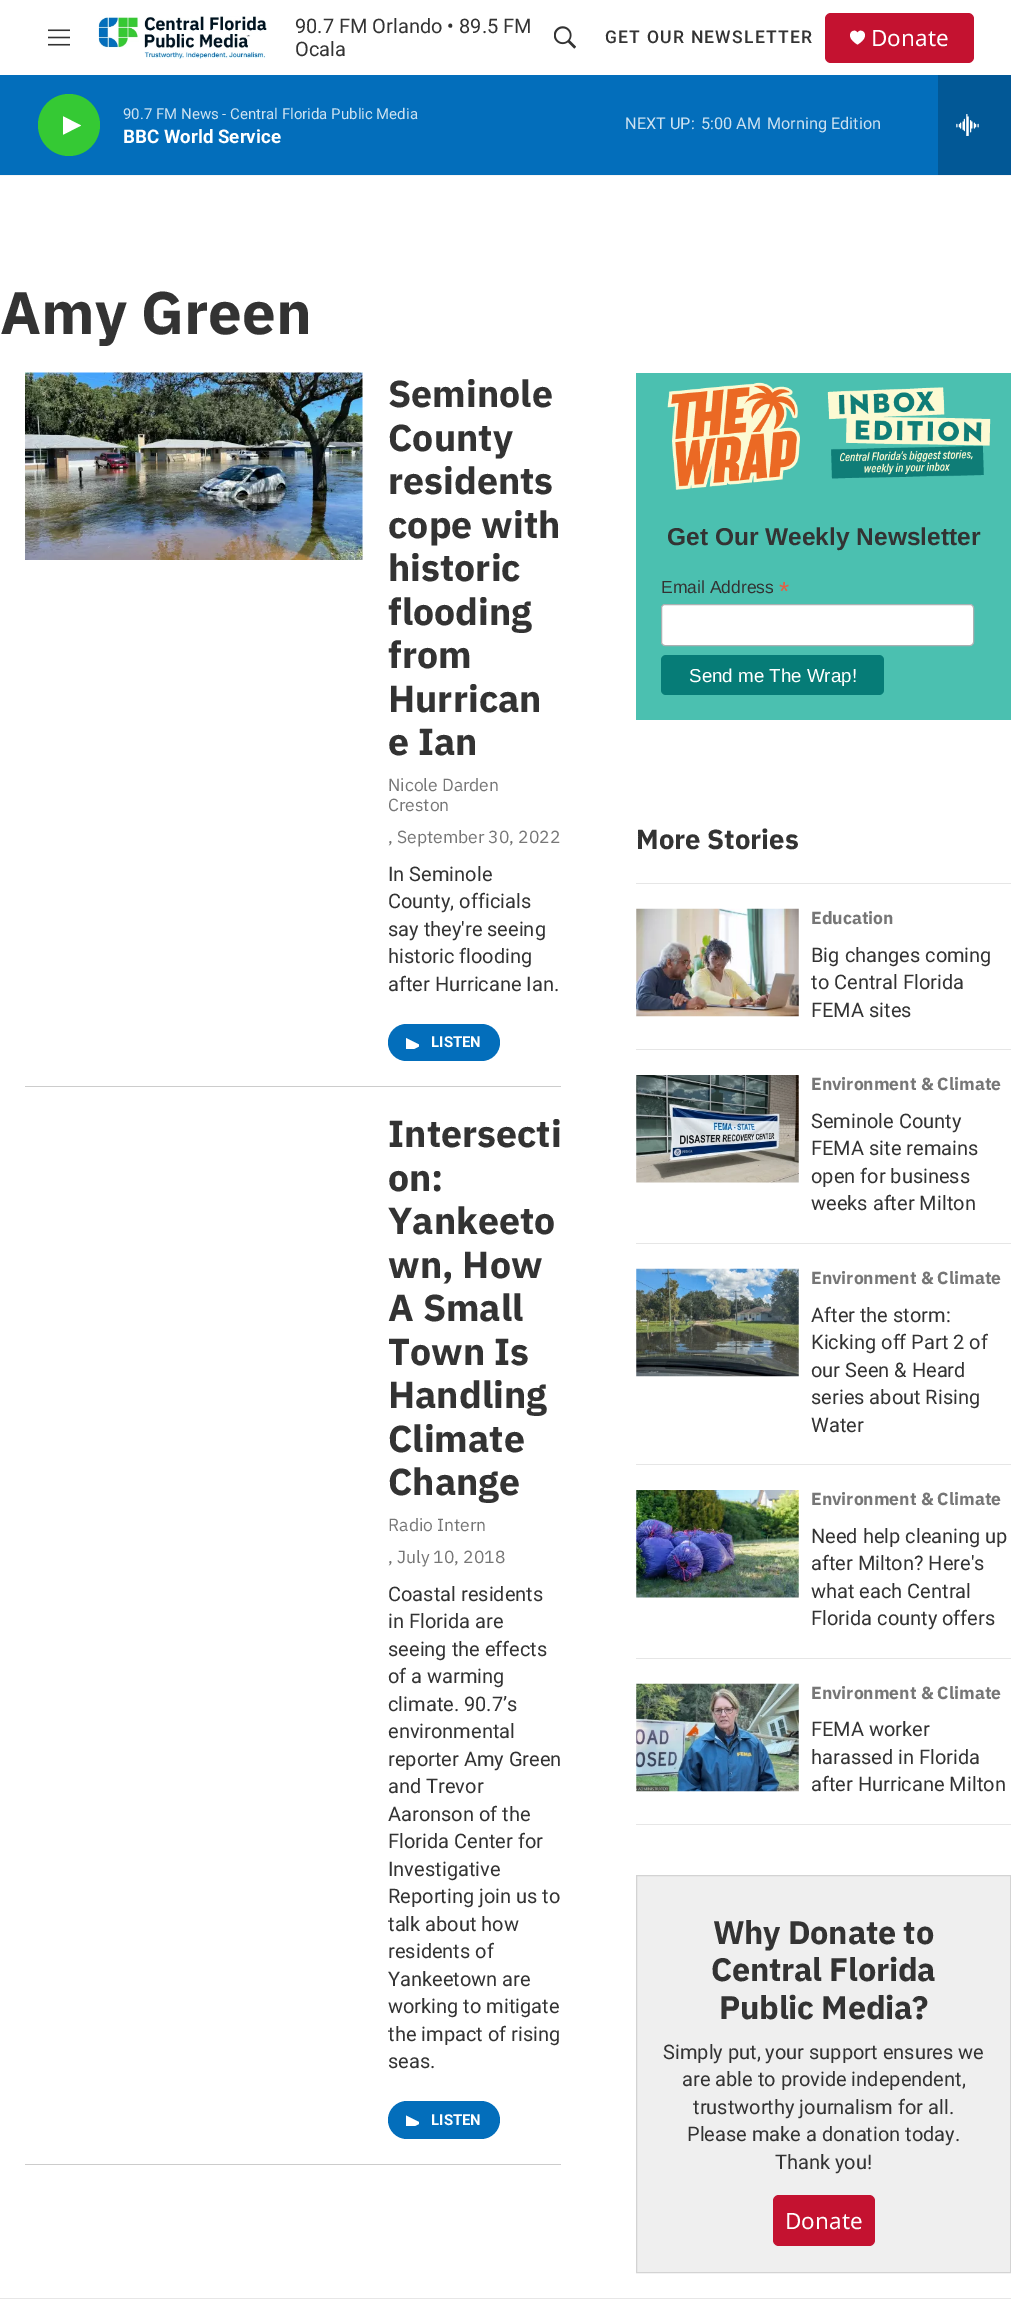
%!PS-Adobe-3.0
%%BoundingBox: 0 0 1011 2303
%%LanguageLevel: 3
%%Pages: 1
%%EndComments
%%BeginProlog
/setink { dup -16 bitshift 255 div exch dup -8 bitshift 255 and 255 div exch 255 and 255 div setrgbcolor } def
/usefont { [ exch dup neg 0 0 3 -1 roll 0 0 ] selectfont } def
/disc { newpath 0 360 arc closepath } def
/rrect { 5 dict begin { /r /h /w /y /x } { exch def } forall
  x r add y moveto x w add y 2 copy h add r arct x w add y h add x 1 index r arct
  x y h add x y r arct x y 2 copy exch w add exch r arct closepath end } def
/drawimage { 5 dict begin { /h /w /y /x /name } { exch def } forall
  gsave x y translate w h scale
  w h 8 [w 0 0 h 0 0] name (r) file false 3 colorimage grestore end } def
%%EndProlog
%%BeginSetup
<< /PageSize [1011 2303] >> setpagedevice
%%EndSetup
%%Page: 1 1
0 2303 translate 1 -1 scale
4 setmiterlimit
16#FFFFFF setink
0 0 1011 2303 rectfill
16#F5F5F5 setink
0 175 1011 1 rectfill
(img1.raw) 48 29 22 17 drawimage
(img2.raw) 98 16 169 43 drawimage
/Roboto-Regular 20 usefont
16#333333 setink
295 33 moveto (90.7 FM Orlando • 89.5 FM) show
295 56 moveto (Ocala) show
(img3.raw) 554 26 22 23 drawimage
/Roboto-Medium 17.5 usefont
605 43 moveto 1.25 0 (GET OUR NEWSLETTER) ashow
16#C41230 setink
825 13 149 50 6 rrect fill
16#FFFFFF setink
857.5 33 moveto 855 26.5 842 35 857.5 44.5 curveto 873 35 860 26.5 857.5 33 curveto closepath fill
/NotoSans-Regular 22.5 usefont
871 46 moveto (Donate) show
16#036EBB setink
0 75 938 100 rectfill
16#35C934 setink
69 125 31 disc fill
gsave
63 114 18 24 rectclip
16#FFFFFF setink
62.5 116 moveto 81 125.5 lineto 62.5 135 lineto closepath fill
grestore
/Roboto-Regular 15 usefont
16#CDE2F1 setink
123 119 moveto (90.7 FM News - Central Florida Public Media) show
/Roboto-Bold 18.75 usefont
16#FFFFFF setink
123 143 moveto (BBC World Service) show
/Roboto-Regular 16.25 usefont
16#CDE2F1 setink
[
    [(NEXT UP:) 625 129]
    [(5:00 AM) 701 129]
    [(Morning Edition) 767 129]
] { aload pop moveto show } forall
16#025896 setink
938 75 73 100 rectfill
(img4.raw) 956 114 23 22 drawimage
/IBMPlexSans-Bold 60 usefont
16#333333 setink
0 334 moveto (Amy Green) show
16#CCCCCC setink
25 1086 536 1 rectfill
(img5.raw) 25 372 338 188 drawimage
/IBMPlexSans-Bold 37.5 usefont
16#333333 setink
[
    [(Seminole) 388 407]
    [(County) 388 451]
    [(residents) 388 494]
    [(cope with) 388 538]
    [(historic) 388 581]
    [(flooding) 388 625]
    [(from) 388 668]
    [(Hurrican) 388 712]
    [(e Ian) 388 755]
] { aload pop moveto show } forall
/IBMPlexSans-Regular 17.5 usefont
16#767676 setink
[
    [(Nicole Darden) 388 791]
    [(Creston) 388 811]
    [(, September 30, 2022) 388 843]
] { aload pop moveto show } forall
/Roboto-Regular 20 usefont
16#333333 setink
[
    [(In Seminole) 388 881]
    [(County, officials) 388 908]
    [(say they're seeing) 388 936]
    [(historic flooding) 388 963]
    [(after Hurricane Ian.) 388 991]
] { aload pop moveto show } forall
16#036EBB setink
388 1024 112 37 18.5 rrect fill
gsave
406 1036 13 13 rectclip
16#FFFFFF setink
406 1038 moveto 421 1045.5 lineto 406 1053 lineto closepath fill
grestore
/Roboto-Bold 15 usefont
16#FFFFFF setink
431 1047 moveto (LISTEN) show
16#CCCCCC setink
25 2164 536 1 rectfill
/IBMPlexSans-Bold 37.5 usefont
16#333333 setink
[
    [(Intersecti) 388 1147]
    [(on:) 388 1191]
    [(Yankeeto) 388 1234]
    [(wn, How) 388 1278]
    [(A Small) 388 1321]
    [(Town Is) 388 1365]
    [(Handling) 388 1408]
    [(Climate) 388 1452]
    [(Change) 388 1495]
] { aload pop moveto show } forall
/IBMPlexSans-Regular 17.5 usefont
16#767676 setink
388 1531 moveto (Radio Intern) show
388 1563 moveto (, July 10, 2018) show
/Roboto-Regular 20 usefont
16#333333 setink
[
    [(Coastal residents) 388 1601]
    [(in Florida are) 388 1628]
    [(seeing the effects) 388 1656]
    [(of a warming) 388 1683]
    [(climate. 90.7’s) 388 1711]
    [(environmental) 388 1738]
    [(reporter Amy Green) 388 1766]
    [(and Trevor) 388 1793]
    [(Aaronson of the) 388 1821]
    [(Florida Center for) 388 1848]
    [(Investigative) 388 1876]
    [(Reporting join us to) 388 1903]
    [(talk about how) 388 1931]
    [(residents of) 388 1958]
    [(Yankeetown are) 388 1986]
    [(working to mitigate) 388 2013]
    [(the impact of rising) 388 2041]
    [(seas.) 388 2068]
] { aload pop moveto show } forall
16#036EBB setink
388 2101 112 38 19 rrect fill
gsave
406 2114 13 12 rectclip
16#FFFFFF setink
406 2115.5 moveto 421 2123 lineto 406 2130.5 lineto closepath fill
grestore
/Roboto-Bold 15 usefont
16#FFFFFF setink
431 2125 moveto (LISTEN) show
16#4BC0B0 setink
636 373 375 347 rectfill
(img6.raw) 667 382 324 108 drawimage
/LiberationSans-Bold 24.5 usefont
16#333333 setink
667 545 moveto (Get Our Weekly Newsletter) show
/LiberationSans-Regular 17.5 usefont
661 593 moveto (Email Address) show
/LiberationSans-Regular 26 usefont
16#E85C41 setink
779 600 moveto (*) show
16#FFFFFF setink
661.5 604.5 312 41 3.5 rrect gsave fill grestore
16#ABB0B2 setink
stroke
16#067C77 setink
661 655 223 40 5 rrect fill
/LiberationSans-Regular 18.75 usefont
16#FFFFFF setink
689 682 moveto (Send me The Wrap!) show
16#E6E6E6 setink
636 883 375 1 rectfill
/IBMPlexSans-Bold 27.5 usefont
16#333333 setink
636 849 moveto (More Stories) show
16#E6E6E6 setink
636 1049 375 1 rectfill
(img7.raw) 636 908 163 109 drawimage
/IBMPlexSans-Bold 17.5 usefont
16#767676 setink
811 924 moveto (Education) show
/Roboto-Regular 20 usefont
16#333333 setink
[
    [(Big changes coming) 811 962]
    [(to Central Florida) 811 989]
    [(FEMA sites) 811 1017]
] { aload pop moveto show } forall
16#E6E6E6 setink
636 1243 375 1 rectfill
(img8.raw) 636 1075 163 108 drawimage
/IBMPlexSans-Bold 17.5 usefont
16#767676 setink
811 1090 moveto (Environment & Climate) show
/Roboto-Regular 20 usefont
16#333333 setink
[
    [(Seminole County) 811 1128]
    [(FEMA site remains) 811 1155]
    [(open for business) 811 1183]
    [(weeks after Milton) 811 1210]
] { aload pop moveto show } forall
16#E6E6E6 setink
636 1464 375 1 rectfill
(img9.raw) 636 1268 163 109 drawimage
/IBMPlexSans-Bold 17.5 usefont
16#767676 setink
811 1284 moveto (Environment & Climate) show
/Roboto-Regular 20 usefont
16#333333 setink
[
    [(After the storm:) 811 1322]
    [(Kicking off Part 2 of) 811 1349]
    [(our Seen & Heard) 811 1377]
    [(series about Rising) 811 1404]
    [(Water) 811 1432]
] { aload pop moveto show } forall
16#E6E6E6 setink
636 1658 375 1 rectfill
(img10.raw) 636 1490 163 108 drawimage
/IBMPlexSans-Bold 17.5 usefont
16#767676 setink
811 1505 moveto (Environment & Climate) show
/Roboto-Regular 20 usefont
16#333333 setink
[
    [(Need help cleaning up) 811 1543]
    [(after Milton? Here's) 811 1570]
    [(what each Central) 811 1598]
    [(Florida county offers) 811 1625]
] { aload pop moveto show } forall
16#E6E6E6 setink
636 1824 375 1 rectfill
(img11.raw) 636 1683 163 109 drawimage
/IBMPlexSans-Bold 17.5 usefont
16#767676 setink
811 1699 moveto (Environment & Climate) show
/Roboto-Regular 20 usefont
16#333333 setink
[
    [(FEMA worker) 811 1736]
    [(harassed in Florida) 811 1764]
    [(after Hurricane Milton) 811 1791]
] { aload pop moveto show } forall
16#EFEFEF setink
636.5 1875.5 moveto 1010.5 1875.5 lineto 1010.5 2272.5 lineto 636.5 2272.5 lineto closepath gsave fill grestore
16#D3D3D3 setink
stroke
/IBMPlexSans-Bold 32.5 usefont
16#333333 setink
713 1944 moveto -0.25 0 (Why Donate to) ashow
711 1981 moveto -0.25 0 (Central Florida) ashow
719 2019 moveto -0.25 0 (Public Media?) ashow
/Roboto-Regular 20 usefont
[
    [(Simply put, your support ensures we) 663 2059]
    [(are able to provide independent,) 682 2086]
    [(trustworthy journalism for all.) 693 2114]
    [(Please make a donation today.) 687 2141]
    [(Thank you!) 775 2169]
] { aload pop moveto show } forall
16#C41230 setink
773 2195 102 51 6 rrect fill
/NotoSans-Regular 22.5 usefont
16#FFFFFF setink
785 2229 moveto (Donate) show
16#E6E6E6 setink
0 2298 1011 1 rectfill
showpage
%%EOF
